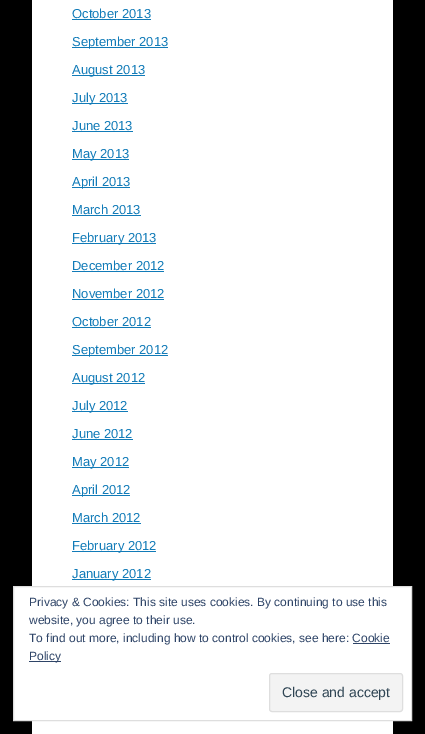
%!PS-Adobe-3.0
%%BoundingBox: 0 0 425 734
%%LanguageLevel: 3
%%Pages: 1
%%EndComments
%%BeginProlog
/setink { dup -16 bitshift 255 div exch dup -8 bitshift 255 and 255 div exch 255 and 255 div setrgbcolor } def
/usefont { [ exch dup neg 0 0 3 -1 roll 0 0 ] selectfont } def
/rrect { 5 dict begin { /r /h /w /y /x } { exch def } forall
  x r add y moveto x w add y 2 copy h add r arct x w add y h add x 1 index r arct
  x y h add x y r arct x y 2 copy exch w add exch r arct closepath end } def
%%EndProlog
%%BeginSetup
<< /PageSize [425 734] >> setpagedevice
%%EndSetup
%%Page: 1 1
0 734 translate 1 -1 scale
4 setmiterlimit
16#000000 setink
0 0 425 734 rectfill
16#FFFFFF setink
32 0 361 734 rectfill
/LiberationSans-Regular 13 usefont
16#117BB8 setink
72 18 moveto (October 2013) show
72 19 79 1 rectfill
72 47 96 1 rectfill
72 46 moveto (September 2013) show
72 75 73 1 rectfill
72 74 moveto (August 2013) show
72 103 56 1 rectfill
72 102 moveto (July 2013) show
72 130 moveto (June 2013) show
72 131 61 1 rectfill
72 159 57 1 rectfill
72 158 moveto (May 2013) show
72 187 58 1 rectfill
72 186 moveto (April 2013) show
72 214 moveto (March 2013) show
72 215 69 1 rectfill
72 243 84 1 rectfill
72 242 moveto (February 2013) show
72 270 moveto (December 2012) show
72 271 92 1 rectfill
72 298 moveto (November 2012) show
72 299 92 1 rectfill
72 326 moveto (October 2012) show
72 327 79 1 rectfill
72 355 96 1 rectfill
72 354 moveto (September 2012) show
72 383 73 1 rectfill
72 382 moveto (August 2012) show
72 411 56 1 rectfill
72 410 moveto (July 2012) show
72 438 moveto (June 2012) show
72 439 61 1 rectfill
72 467 57 1 rectfill
72 466 moveto (May 2012) show
72 495 58 1 rectfill
72 494 moveto (April 2012) show
72 522 moveto (March 2012) show
72 523 69 1 rectfill
72 551 84 1 rectfill
72 550 moveto (February 2012) show
72 579 79 1 rectfill
72 578 moveto (January 2012) show
16#FFFFFF setink
13.5 586.5 moveto 411.5 586.5 lineto 411.5 720.5 lineto 13.5 720.5 lineto closepath gsave fill grestore
16#DEDEDE setink
stroke
/LiberationSans-Regular 12 usefont
16#2E4467 setink
[
    [(Privacy & Cookies: This site uses cookies. By continuing to use this) 29 606]
    [(website, you agree to their use.) 29 624]
    [(To find out more, including how to control cookies, see here: Cookie) 29 642]
] { aload pop moveto show } forall
29 661 32 1 rectfill
29 660 moveto (Policy) show
353 643 37 1 rectfill
16#F3F3F3 setink
269.5 673.5 133 38 2.5 rrect gsave fill grestore
16#DEDEDE setink
stroke
/LiberationSans-Regular 14 usefont
16#2E4453 setink
282 697 moveto (Close and accept) show
showpage
%%EOF
